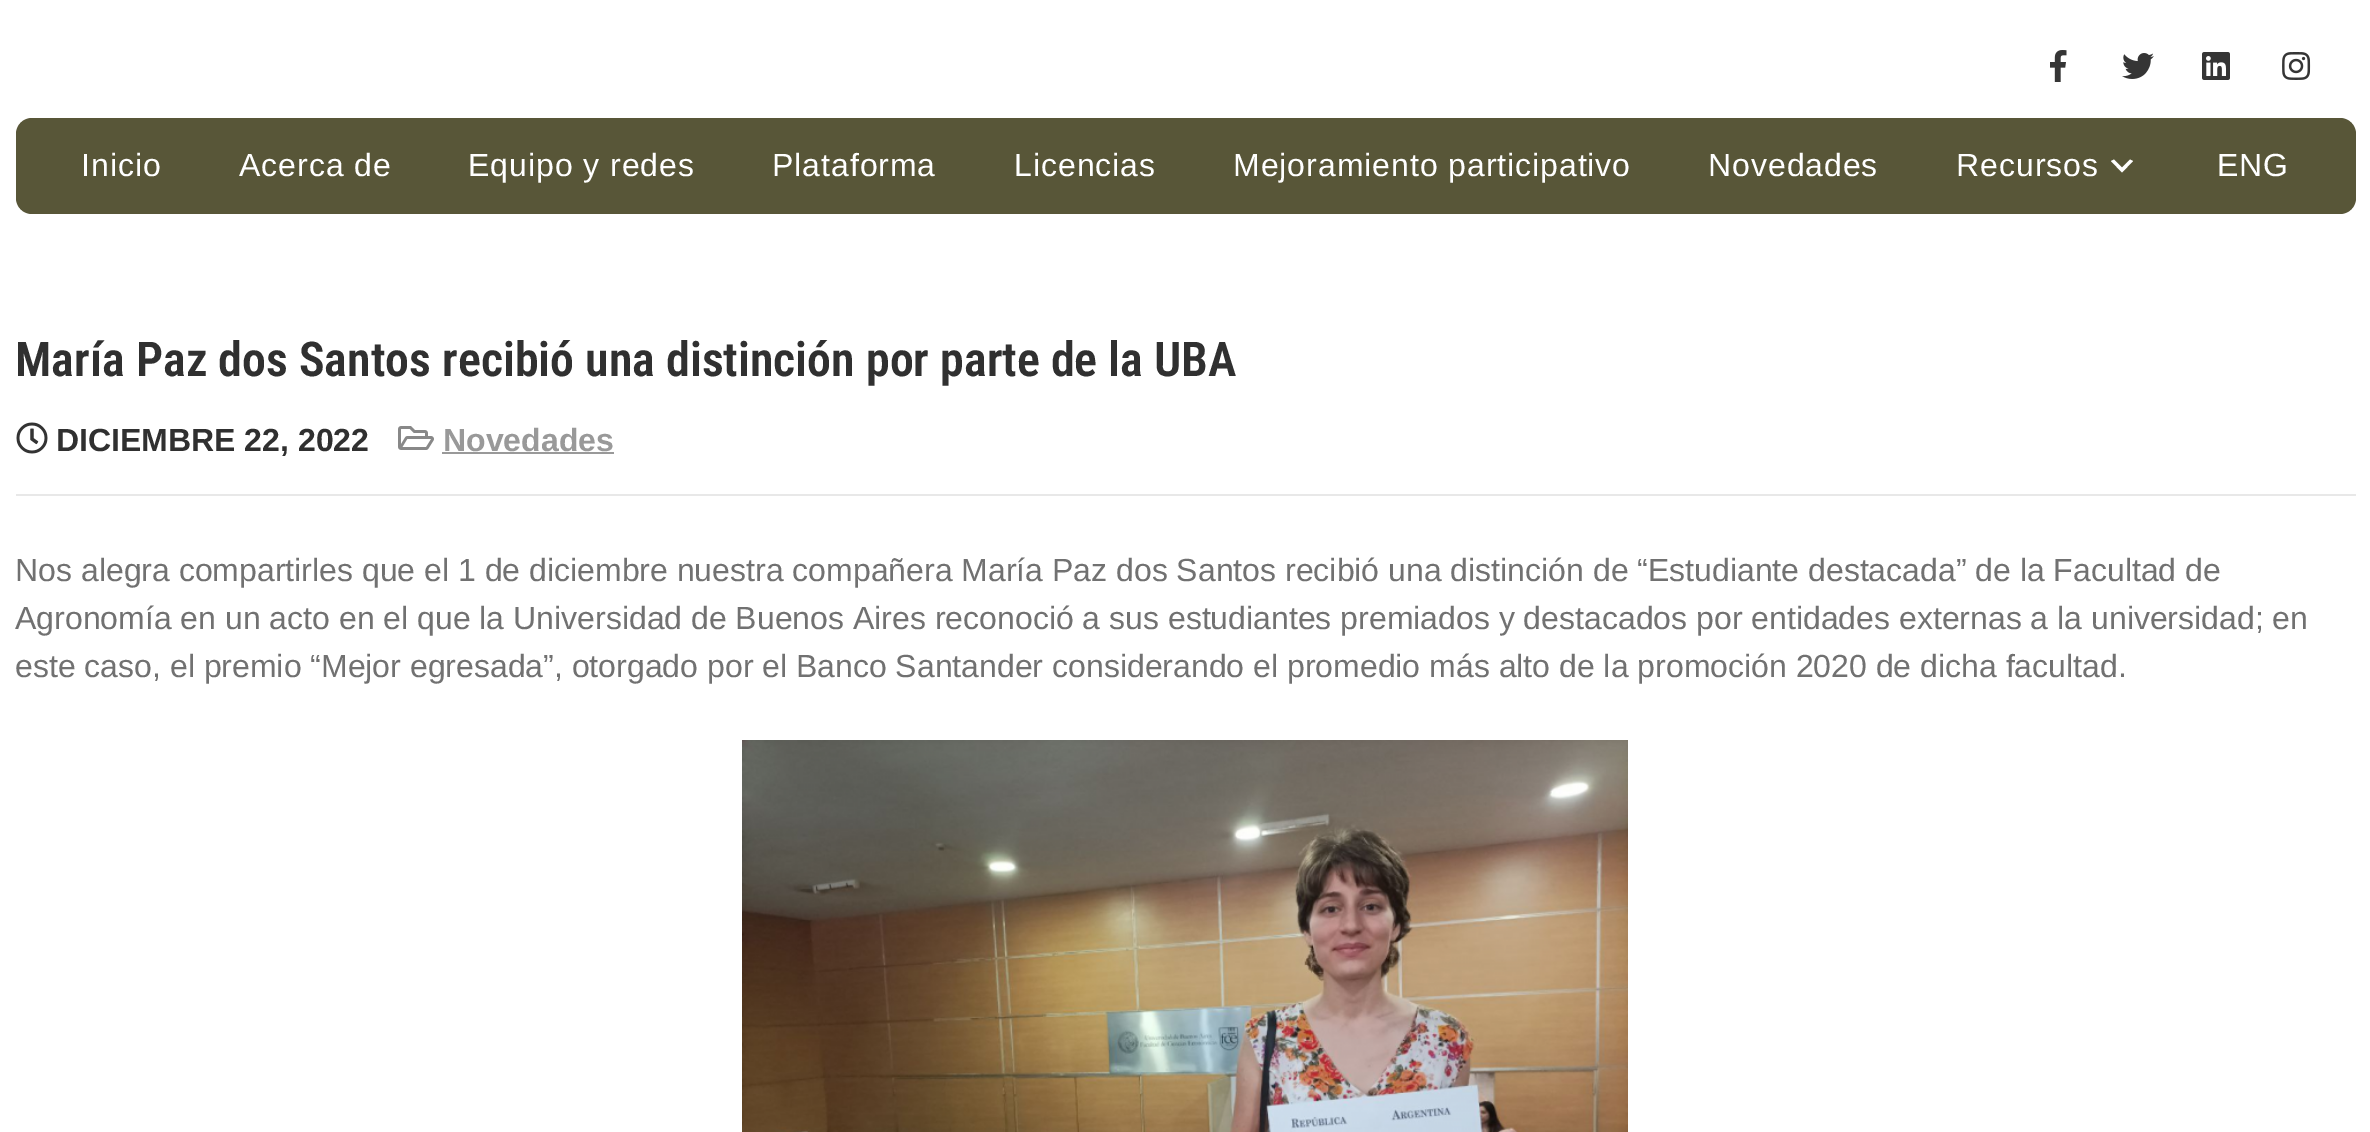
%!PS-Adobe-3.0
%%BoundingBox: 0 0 2370 1132
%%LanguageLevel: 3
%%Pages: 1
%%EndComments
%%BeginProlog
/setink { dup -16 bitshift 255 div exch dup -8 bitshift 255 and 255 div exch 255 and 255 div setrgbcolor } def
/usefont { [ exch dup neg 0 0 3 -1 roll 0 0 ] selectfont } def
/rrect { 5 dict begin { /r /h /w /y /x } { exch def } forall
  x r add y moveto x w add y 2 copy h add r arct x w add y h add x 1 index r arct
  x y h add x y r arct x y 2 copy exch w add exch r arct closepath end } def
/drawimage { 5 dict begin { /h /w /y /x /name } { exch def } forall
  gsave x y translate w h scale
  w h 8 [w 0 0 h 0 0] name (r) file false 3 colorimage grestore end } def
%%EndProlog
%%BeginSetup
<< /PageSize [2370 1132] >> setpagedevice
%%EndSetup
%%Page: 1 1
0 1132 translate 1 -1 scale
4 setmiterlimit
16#FFFFFF setink
0 0 2370 1132 rectfill
(img1.raw) 2050 50 17 32 drawimage
(img2.raw) 2122 53 32 26 drawimage
(img3.raw) 2202 52 28 28 drawimage
(img4.raw) 2282 52 29 28 drawimage
16#585638 setink
16 118 2340 96 16 rrect fill
/LiberationSans-Regular 32 usefont
16#FFFFFF setink
81 176 moveto 0.95 0 (Inicio) ashow
239 176 moveto 0.95 0 (Acerca de) ashow
468 176 moveto 0.95 0 (Equipo y redes) ashow
772 176 moveto 0.95 0 (Plataforma) ashow
1014 176 moveto 0.95 0 (Licencias) ashow
1233 176 moveto 0.95 0 (Mejoramiento participativo) ashow
1708 176 moveto 0.95 0 (Novedades) ashow
1956 176 moveto 0.95 0 (Recursos) ashow
2114 159.5 moveto 2122 167.5 lineto 2130 159.5 lineto 2133 161 lineto 2122 172.5 lineto 2111 161 lineto closepath fill
2217 176 moveto 0.95 0 (ENG) ashow
/RobotoCondensed-SemiBold 48 usefont
16#303030 setink
15 376 moveto (María Paz dos Santos recibió una distinción por parte de la UBA) show
16#E8E8E8 setink
16 494 2340 2 rectfill
(img5.raw) 16 422 32 32 drawimage
/LiberationSans-Bold 32 usefont
16#303030 setink
56 451 moveto (DICIEMBRE 22, 2022) show
(img6.raw) 398 426 36 24 drawimage
16#999999 setink
443 451 moveto (Novedades) show
442 452 172 2 rectfill
/LiberationSans-Regular 32 usefont
16#717171 setink
[
    [(Nos alegra compartirles que el 1 de diciembre nuestra compañera María Paz dos Santos recibió una distinción de “Estudiante destacada” de la Facultad de) 15 581]
    [(Agronomía en un acto en el que la Universidad de Buenos Aires reconoció a sus estudiantes premiados y destacados por entidades externas a la universidad; en) 15 629]
    [(este caso, el premio “Mejor egresada”, otorgado por el Banco Santander considerando el promedio más alto de la promoción 2020 de dicha facultad.) 15 677]
] { aload pop moveto show } forall
(img7.raw) 742 740 886 392 drawimage
showpage
%%EOF
